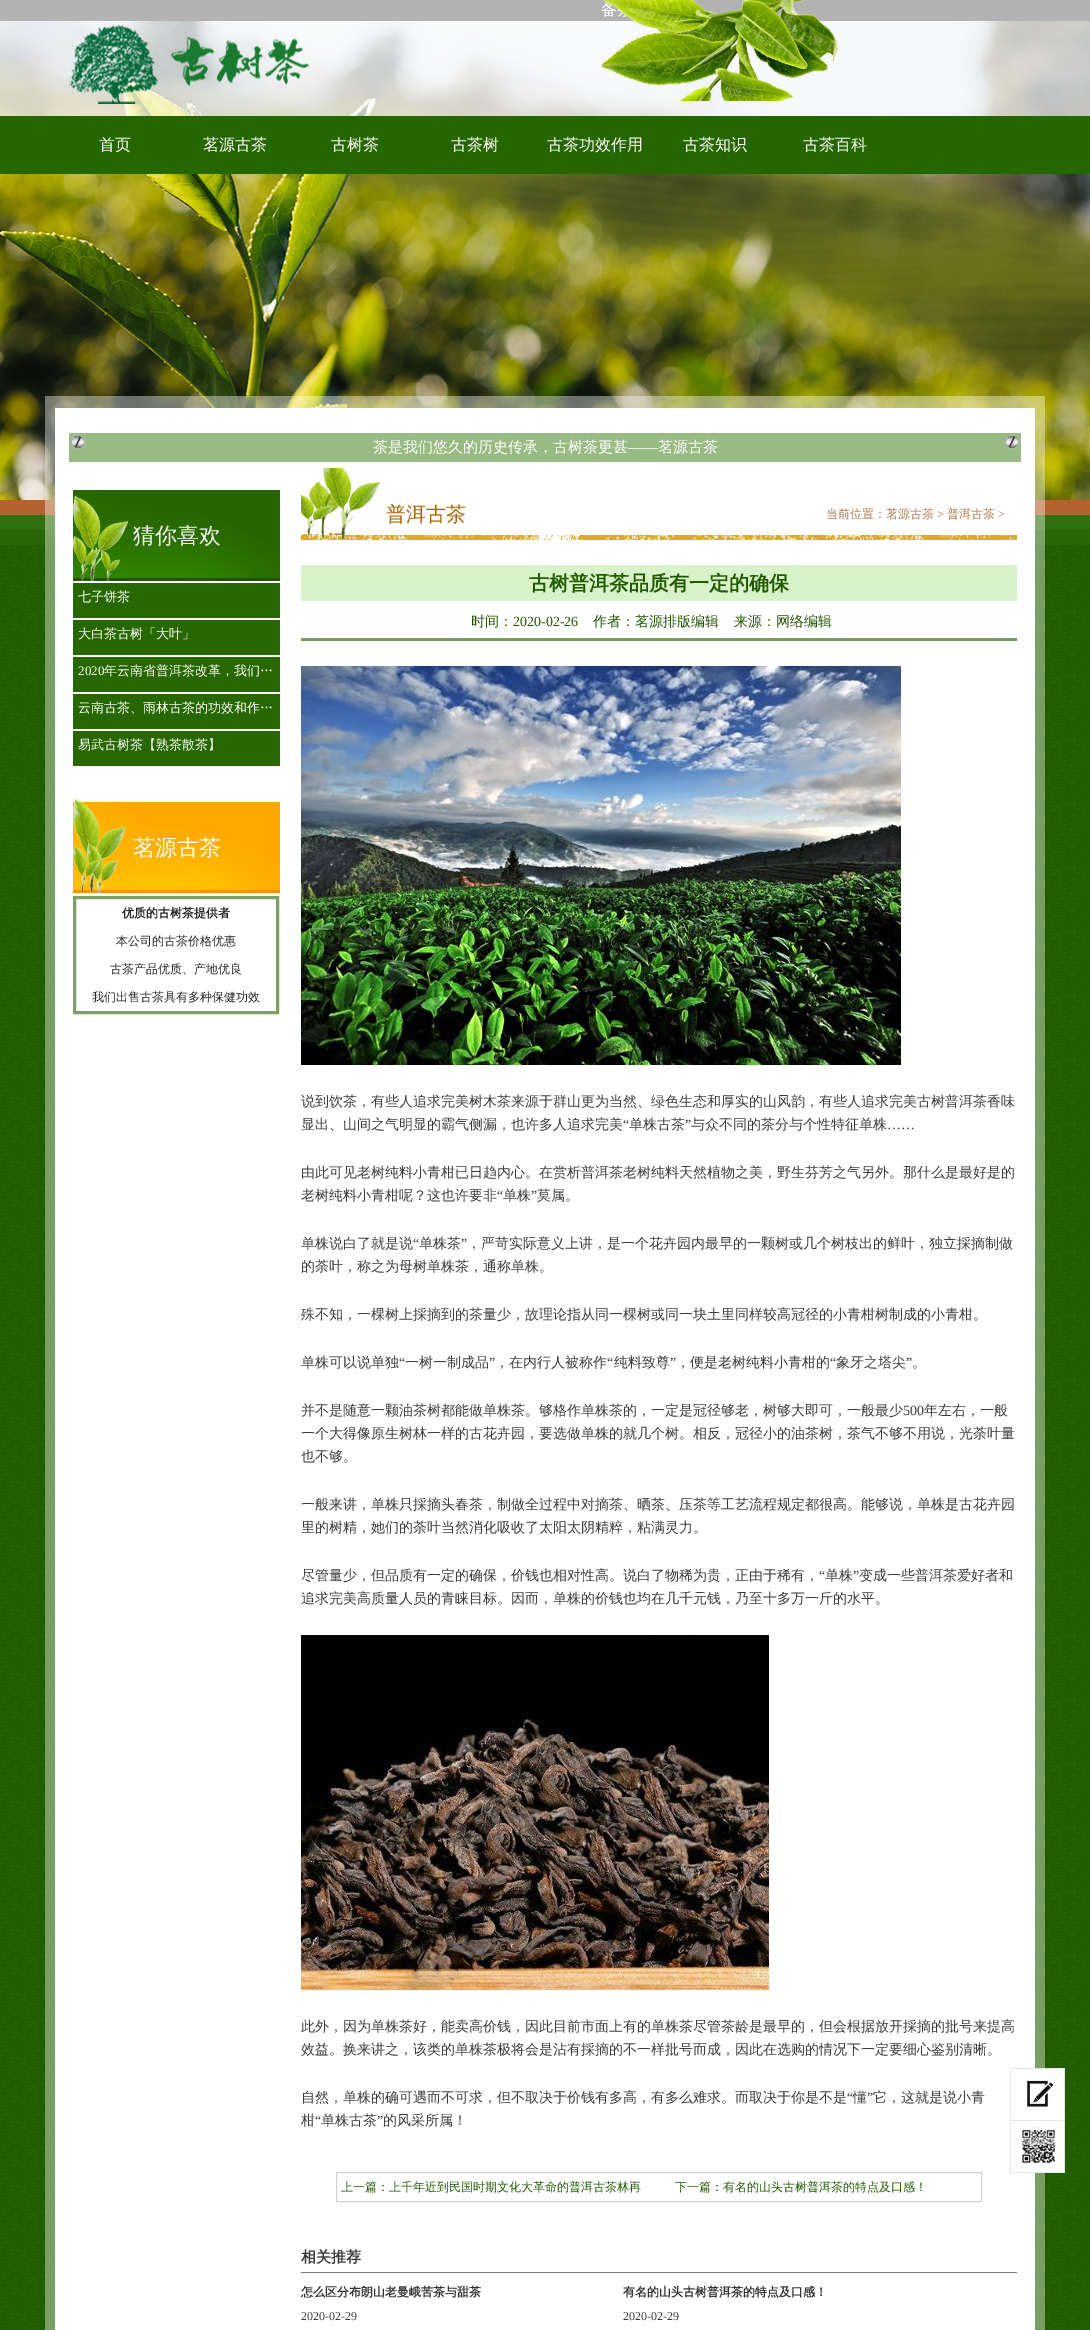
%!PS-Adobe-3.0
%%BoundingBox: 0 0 1090 2330
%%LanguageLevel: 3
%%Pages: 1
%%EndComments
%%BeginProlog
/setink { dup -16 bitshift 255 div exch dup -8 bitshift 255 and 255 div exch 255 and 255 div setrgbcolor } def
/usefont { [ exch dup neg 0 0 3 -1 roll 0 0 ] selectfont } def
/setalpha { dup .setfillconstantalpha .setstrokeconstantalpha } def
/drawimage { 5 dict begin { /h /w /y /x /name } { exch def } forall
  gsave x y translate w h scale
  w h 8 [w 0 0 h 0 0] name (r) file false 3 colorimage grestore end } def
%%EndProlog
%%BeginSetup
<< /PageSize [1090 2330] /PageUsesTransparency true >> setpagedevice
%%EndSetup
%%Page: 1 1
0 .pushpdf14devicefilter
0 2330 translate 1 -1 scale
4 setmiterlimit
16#FFFFFF setink
0 0 1090 2330 rectfill
(img1.raw) 0 545 1090 1785 drawimage
16#000000 setink
0 0 1090 21 rectfill
(img3.raw) 0 21 1090 479 drawimage
0.7 setalpha
16#FFFFFF setink
0 0 1090 116 rectfill
1 setalpha
(img2.raw) 601 0 237 101 drawimage
(img4.raw) 69 24 240 80 drawimage
16#266600 setink
0 116 1090 58 rectfill
/WenQuanYiZenHei-Medium 16 usefont
16#FFFFFF setink
[
    [(首页) 99 150]
    [(茗源古茶) 203 150]
    [(古树茶) 331 150]
    [(古茶树) 451 150]
    [(古茶功效作用) 547 150]
    [(古茶知识) 683 150]
    [(古茶百科) 803 150]
] { aload pop moveto show } forall
(img5.raw) 45 396 1000 104 drawimage
16#98BB84 setink
69 433 952 29 rectfill
(img6.raw) 69 433 18 18 drawimage
/WenQuanYiZenHei-Medium 15 usefont
16#FFFFFF setink
373 452 moveto (茶是我们悠久的历史传承，古树茶更甚) show
/LiberationSerif-Regular 15 usefont
628 452 moveto (——) show
/WenQuanYiZenHei-Medium 15 usefont
658 452 moveto (茗源古茶) show
(img6.raw) 1003 433 18 18 drawimage
(img7.raw) 0 500 1090 45 drawimage
(img8.raw) 45 500 1000 1830 drawimage
(img9.raw) 73 490 207 91 drawimage
/WenQuanYiZenHei-Medium 22 usefont
133 543 moveto (猜你喜欢) show
16#266700 setink
73 583 207 35 rectfill
/WenQuanYiZenHei-Medium 13 usefont
16#FFFFFF setink
78 601 moveto (七子饼茶) show
16#266700 setink
73 620 207 35 rectfill
16#FFFFFF setink
78 638 moveto (大白茶古树「大叶」) show
16#266700 setink
73 657 207 35 rectfill
/LiberationSerif-Regular 13 usefont
16#FFFFFF setink
78 675 moveto (2020) show
/WenQuanYiZenHei-Medium 13 usefont
104 675 moveto (年云南省普洱茶改革，我们…) show
16#266700 setink
73 694 207 35 rectfill
16#FFFFFF setink
78 712 moveto (云南古茶、雨林古茶的功效和作…) show
16#266700 setink
73 731 207 35 rectfill
16#FFFFFF setink
78 749 moveto (易武古树茶【熟茶散茶】) show
(img10.raw) 73 793 207 100 drawimage
/WenQuanYiZenHei-Medium 22 usefont
133 855 moveto (茗源古茶) show
16#7B9F67 setink
3 setlinewidth
74.5 897.5 203 115 rectstroke
/WenQuanYiZenHei-Bold 12 usefont
16#232323 setink
122 917 moveto (优质的古树茶提供者) show
/WenQuanYiZenHei-Medium 12 usefont
[
    [(本公司的古茶价格优惠) 116 945]
    [(古茶产品优质、产地优良) 110 973]
    [(我们出售古茶具有多种保健功效) 92 1001]
] { aload pop moveto show } forall
(img11.raw) 301 468 716 72 drawimage
/WenQuanYiZenHei-Medium 20 usefont
16#AB5F00 setink
386 521 moveto (普洱古茶) show
/WenQuanYiZenHei-Medium 12 usefont
16#AC794E setink
826 518 moveto (当前位置：茗源古茶) show
/LiberationSerif-Regular 12 usefont
937 518 moveto (>) show
/WenQuanYiZenHei-Medium 12 usefont
947 518 moveto (普洱古茶) show
/LiberationSerif-Regular 12 usefont
998 518 moveto (>) show
16#D8F3C9 setink
301 565 716 36 rectfill
/WenQuanYiZenHei-Bold 20 usefont
16#205B00 setink
529 590 moveto (古树普洱茶品质有一定的确保) show
16#799D66 setink
301 638 716 3 rectfill
/WenQuanYiZenHei-Medium 14 usefont
16#205402 setink
471 626 moveto (时间：) show
/LiberationSerif-Regular 14 usefont
513 626 moveto (2020-02-26) show
/WenQuanYiZenHei-Medium 14 usefont
593 626 moveto (作者：茗源排版编辑) show
734 626 moveto (来源：网络编辑) show
(img12.raw) 301 666 600 399 drawimage
16#3B3B3B setink
301 1106 moveto (说到饮茶，有些人追求完美树木茶来源于群山更为当然、绿色生态和厚实的山风韵，有些人追求完美古树普洱茶香味) show
301 1129 moveto (显出、山间之气明显的霸气侧漏，也许多人追求完美) show
/LiberationSerif-Regular 14 usefont
623 1129 moveto (“) show
/WenQuanYiZenHei-Medium 14 usefont
629 1129 moveto (单株古茶) show
/LiberationSerif-Regular 14 usefont
685 1129 moveto (”) show
/WenQuanYiZenHei-Medium 14 usefont
691 1129 moveto (与众不同的茶分与个性特征单株) show
/LiberationSerif-Regular 14 usefont
887 1129 moveto (……) show
/WenQuanYiZenHei-Medium 14 usefont
301 1177 moveto (由此可见老树纯料小青柑已日趋内心。在赏析普洱茶老树纯料天然植物之美，野生芬芳之气另外。那什么是最好是的) show
301 1200 moveto (老树纯料小青柑呢？这也许要非) show
/LiberationSerif-Regular 14 usefont
497 1200 moveto (“) show
/WenQuanYiZenHei-Medium 14 usefont
503 1200 moveto (单株) show
/LiberationSerif-Regular 14 usefont
531 1200 moveto (”) show
/WenQuanYiZenHei-Medium 14 usefont
537 1200 moveto (莫属。) show
301 1248 moveto (单株说白了就是说) show
/LiberationSerif-Regular 14 usefont
413 1248 moveto (“) show
/WenQuanYiZenHei-Medium 14 usefont
419 1248 moveto (单株茶) show
/LiberationSerif-Regular 14 usefont
461 1248 moveto (”) show
/WenQuanYiZenHei-Medium 14 usefont
[
    [(，严苛实际意义上讲，是一个花卉园内最早的一颗树或几个树枝出的鲜叶，独立採摘制做) 467 1248]
    [(的荼叶，称之为母树单株茶，通称单株。) 301 1271]
    [(殊不知，一棵树上採摘到的茶量少，故理论指从同一棵树或同一块土里同样较高冠径的小青柑树制成的小青柑。) 301 1319]
    [(单株可以说单独) 301 1367]
] { aload pop moveto show } forall
/LiberationSerif-Regular 14 usefont
399 1367 moveto (“) show
/WenQuanYiZenHei-Medium 14 usefont
405 1367 moveto (一树一制成品) show
/LiberationSerif-Regular 14 usefont
489 1367 moveto (”) show
/WenQuanYiZenHei-Medium 14 usefont
495 1367 moveto (，在内行人被称作) show
/LiberationSerif-Regular 14 usefont
607 1367 moveto (“) show
/WenQuanYiZenHei-Medium 14 usefont
614 1367 moveto (纯料致尊) show
/LiberationSerif-Regular 14 usefont
670 1367 moveto (”) show
/WenQuanYiZenHei-Medium 14 usefont
676 1367 moveto (，便是老树纯料小青柑的) show
/LiberationSerif-Regular 14 usefont
830 1367 moveto (“) show
/WenQuanYiZenHei-Medium 14 usefont
836 1367 moveto (象牙之塔尖) show
/LiberationSerif-Regular 14 usefont
906 1367 moveto (”) show
/WenQuanYiZenHei-Medium 14 usefont
912 1367 moveto (。) show
301 1415 moveto (并不是随意一颗油茶树都能做单株茶。够格作单株茶的，一定是冠径够老，树够大即可，一般最少) show
/LiberationSerif-Regular 14 usefont
903 1415 moveto (500) show
/WenQuanYiZenHei-Medium 14 usefont
[
    [(年左右，一般) 924 1415]
    [(一个大得像原生树林一样的古花卉园，要选做单株的就几个树。相反，冠径小的油茶树，茶气不够不用说，光荼叶量) 301 1438]
    [(也不够。) 301 1461]
    [(一般来讲，单株只採摘头春茶，制做全过程中对摘茶、晒茶、压茶等工艺流程规定都很高。能够说，单株是古花卉园) 301 1509]
    [(里的树精，她们的荼叶当然消化吸收了太阳太阴精粹，粘满灵力。) 301 1532]
    [(尽管量少，但品质有一定的确保，价钱也相对性高。说白了物稀为贵，正由于稀有，) 301 1580]
] { aload pop moveto show } forall
/LiberationSerif-Regular 14 usefont
819 1580 moveto (“) show
/WenQuanYiZenHei-Medium 14 usefont
825 1580 moveto (单株) show
/LiberationSerif-Regular 14 usefont
853 1580 moveto (”) show
/WenQuanYiZenHei-Medium 14 usefont
859 1580 moveto (变成一些普洱茶爱好者和) show
301 1603 moveto (追求完美高质量人员的青睐目标。因而，单株的价钱也均在几千元钱，乃至十多万一斤的水平。) show
(img13.raw) 301 1635 468 355 drawimage
[
    [(此外，因为单株茶好，能卖高价钱，因此目前市面上有的单株茶尽管茶龄是最早的，但会根据放开採摘的批号来提高) 301 2031]
    [(效益。换来讲之，该类的单株茶极将会是沾有採摘的不一样批号而成，因此在选购的情况下一定要细心鉴别清晰。) 301 2054]
    [(自然，单株的确可遇而不可求，但不取决于价钱有多高，有多么难求。而取决于你是不是) 301 2102]
] { aload pop moveto show } forall
/LiberationSerif-Regular 14 usefont
847 2102 moveto (“) show
/WenQuanYiZenHei-Medium 14 usefont
853 2102 moveto (懂) show
/LiberationSerif-Regular 14 usefont
867 2102 moveto (”) show
/WenQuanYiZenHei-Medium 14 usefont
873 2102 moveto (它，这就是说小青) show
301 2125 moveto (柑) show
/LiberationSerif-Regular 14 usefont
315 2125 moveto (“) show
/WenQuanYiZenHei-Medium 14 usefont
321 2125 moveto (单株古茶) show
/LiberationSerif-Regular 14 usefont
377 2125 moveto (”) show
/WenQuanYiZenHei-Medium 14 usefont
383 2125 moveto (的风采所属！) show
16#D4D4D4 setink
1 setlinewidth
336.5 2172.5 645 29 rectstroke
/WenQuanYiZenHei-Medium 12 usefont
16#205B00 setink
341 2191 moveto (上一篇：上千年近到民国时期文化大革命的普洱古茶林再) show
675 2191 moveto (下一篇：有名的山头古树普洱茶的特点及口感！) show
16#7B7B7B setink
301 2272 716 1 rectfill
/WenQuanYiZenHei-Bold 15 usefont
16#3B3B3B setink
301 2262 moveto (相关推荐) show
/WenQuanYiZenHei-Bold 12 usefont
16#333333 setink
301 2296 moveto (怎么区分布朗山老曼峨苦茶与甜茶) show
/LiberationSerif-Regular 12 usefont
16#3B3B3B setink
301 2320 moveto (2020-02-29) show
/WenQuanYiZenHei-Bold 12 usefont
16#333333 setink
623 2296 moveto (有名的山头古树普洱茶的特点及口感！) show
/LiberationSerif-Regular 12 usefont
16#3B3B3B setink
623 2320 moveto (2020-02-29) show
(img14.raw) 1010 2068 55 53 drawimage
(img15.raw) 1010 2121 55 52 drawimage
.poppdf14devicefilter showpage
%%EOF
